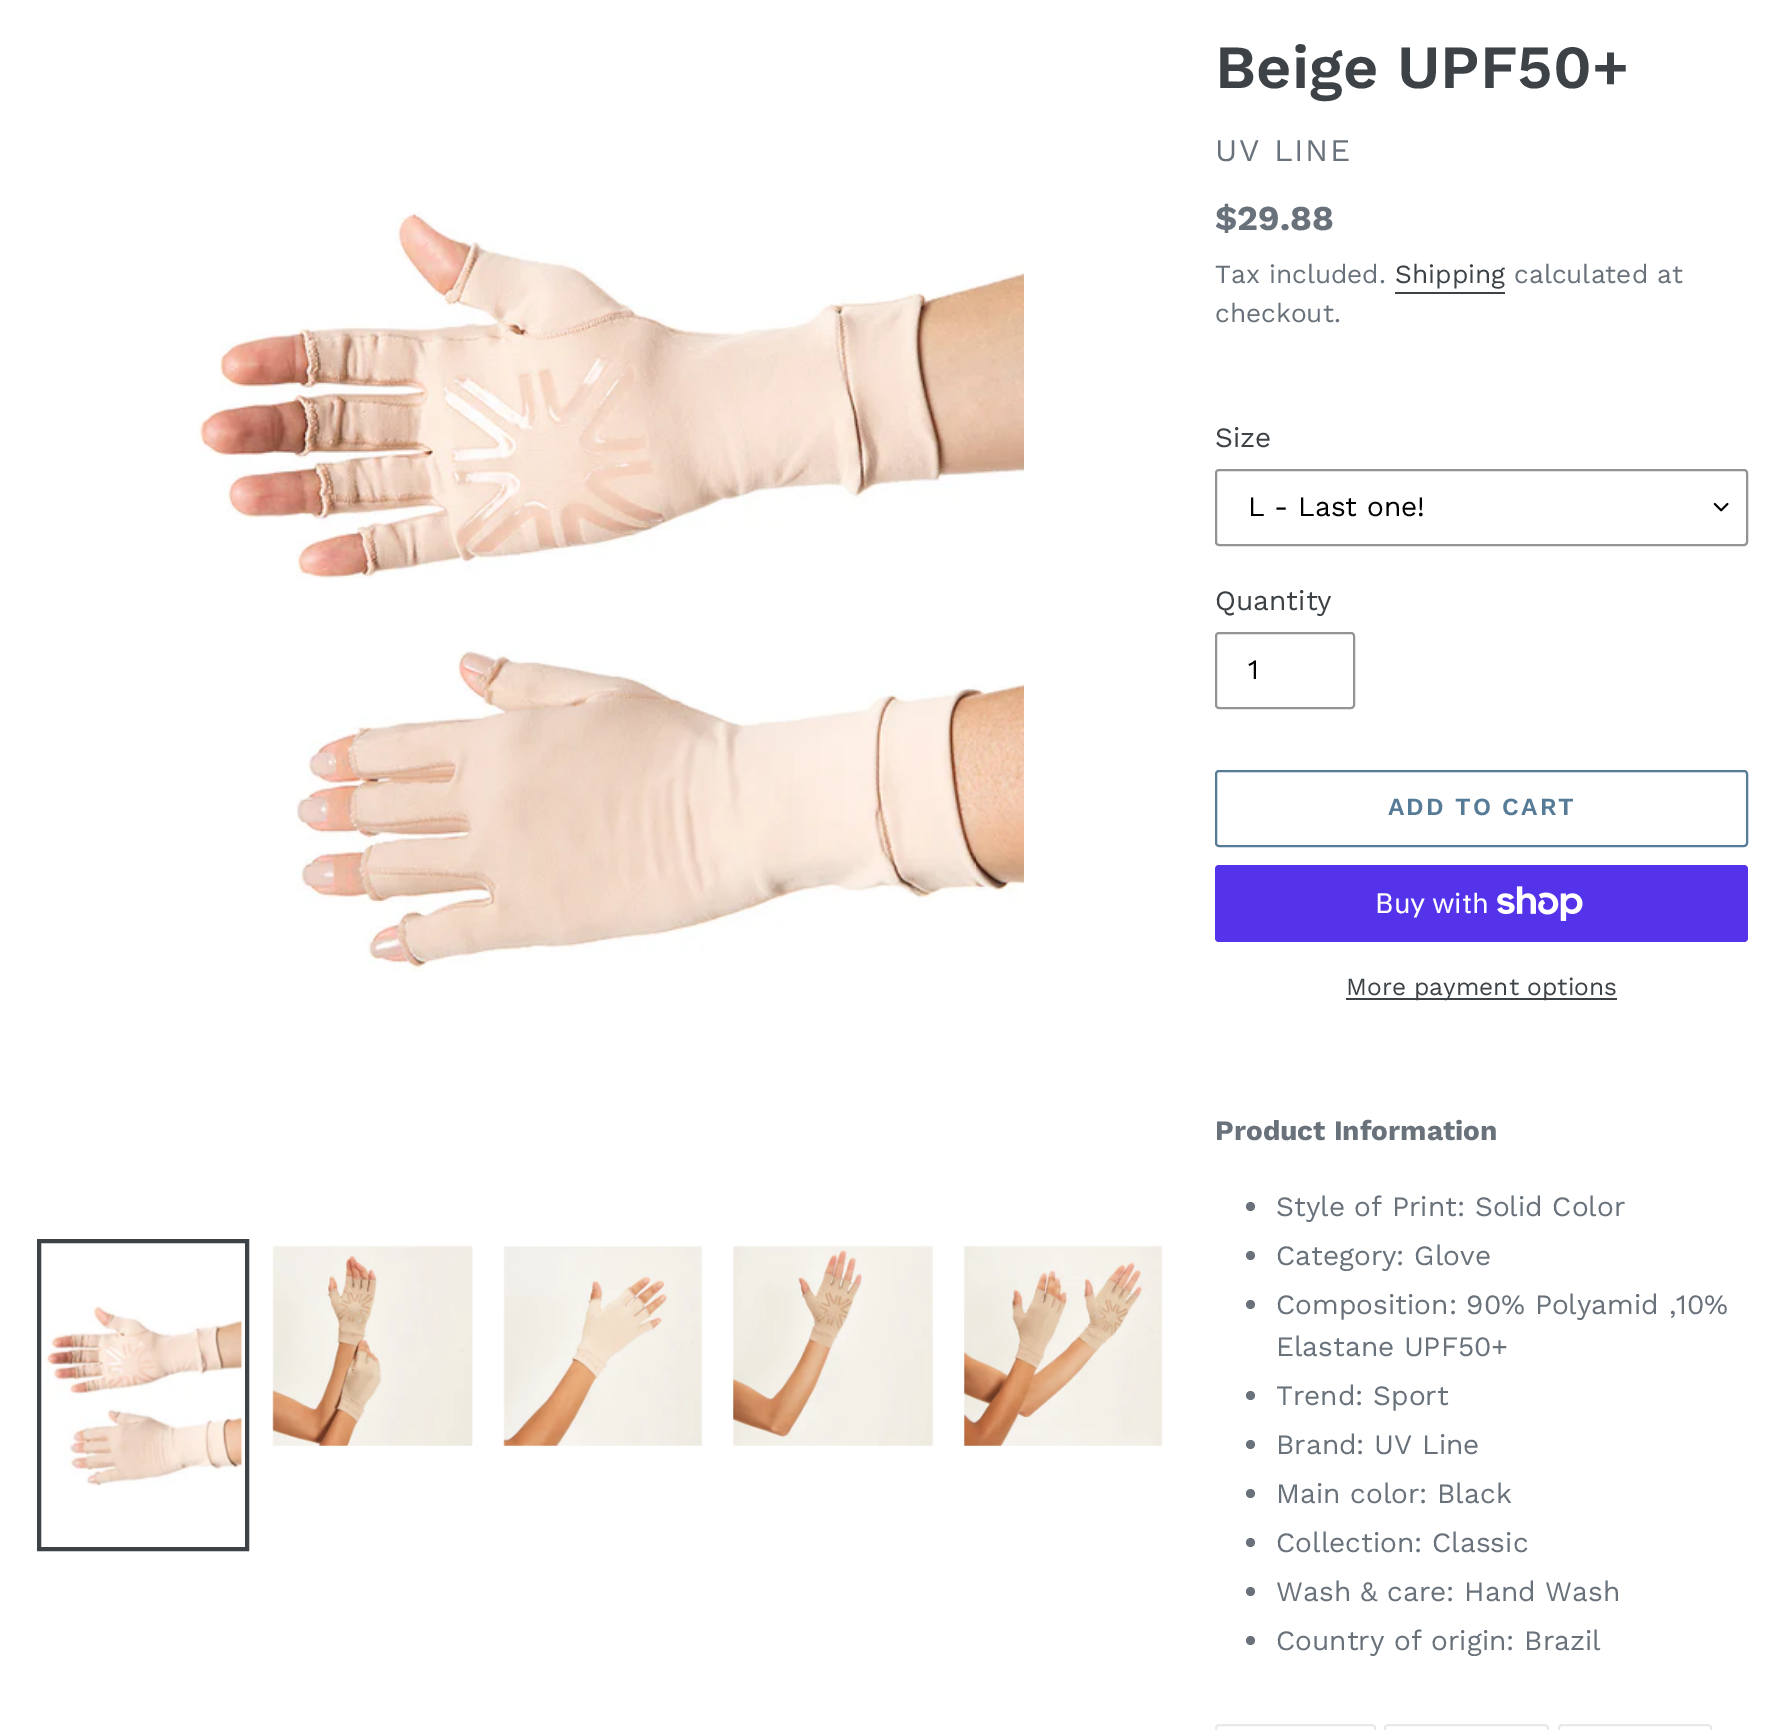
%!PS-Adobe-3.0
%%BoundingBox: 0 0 1791 1730
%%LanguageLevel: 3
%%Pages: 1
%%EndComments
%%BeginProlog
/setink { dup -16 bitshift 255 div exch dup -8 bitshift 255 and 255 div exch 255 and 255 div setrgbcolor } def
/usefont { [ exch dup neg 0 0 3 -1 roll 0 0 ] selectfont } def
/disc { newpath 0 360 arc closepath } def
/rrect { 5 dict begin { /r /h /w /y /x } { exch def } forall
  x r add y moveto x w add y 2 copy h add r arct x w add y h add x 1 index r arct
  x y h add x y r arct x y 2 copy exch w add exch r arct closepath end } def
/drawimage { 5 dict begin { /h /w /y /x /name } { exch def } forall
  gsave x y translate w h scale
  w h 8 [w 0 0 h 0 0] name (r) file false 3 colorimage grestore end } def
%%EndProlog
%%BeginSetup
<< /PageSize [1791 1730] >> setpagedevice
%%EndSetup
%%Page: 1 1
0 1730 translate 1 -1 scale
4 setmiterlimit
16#FFFFFF setink
0 0 1791 1730 rectfill
(img1.raw) 197 212 827 760 drawimage
16#3D4246 setink
4 setlinewidth
39 1241 208 308 rectstroke
(img2.raw) 44 1306 199 180 drawimage
(img3.raw) 272 1245 201 201 drawimage
(img4.raw) 503 1246 200 200 drawimage
(img5.raw) 733 1245 201 201 drawimage
(img6.raw) 964 1245 199 201 drawimage
/WorkSans-SemiBold 61.25 usefont
1215 88 moveto (Beige UPF50+) show
/WorkSans-Regular 31.5 usefont
16#69727B setink
1215 161 moveto 1.75 0 (UV LINE) ashow
/WorkSans-Bold 35 usefont
1215 230 moveto ($29.88) show
/WorkSans-Regular 26.25 usefont
1215 283 moveto (Tax included.) show
16#3D4246 setink
1395 283 moveto (Shipping) show
1395 292 110 2 rectfill
16#69727B setink
1514 283 moveto (calculated at) show
1215 322 moveto (checkout.) show
/WorkSans-Regular 28 usefont
16#3D4246 setink
1215 447 moveto (Size) show
(img7.raw) 1713 502 16 10 drawimage
16#949494 setink
2 setlinewidth
1216 470 531 75 3 rrect stroke
16#000000 setink
1248 516 moveto (L - Last one!) show
16#3D4246 setink
1215 610 moveto (Quantity) show
16#949494 setink
1216 633 138 75 3 rrect stroke
16#000000 setink
1248 679 moveto (1) show
16#557B97 setink
1216 771 531 75 3 rrect stroke
/WorkSans-SemiBold 24.5 usefont
1388 815 moveto 2 0 (ADD TO CART) ashow
16#5433EB setink
1215 865 533 77 4 rrect fill
/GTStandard-Regular 28 usefont
16#FFFFFF setink
1375 913 moveto (Buy with) show
(img8.raw) 1497 886 86 35 drawimage
16#3D4246 setink
1346 998 271 2 rectfill
/WorkSans-Regular 24.5 usefont
1346 995 moveto (More payment options) show
/WorkSans-Bold 28 usefont
16#69727B setink
1215 1140 moveto (Product Information) show
1250.5 1206.5 4.5 disc fill
/WorkSans-Regular 28 usefont
1276 1216 moveto (Style of Print: Solid Color) show
1250.5 1255.5 4.5 disc fill
1276 1265 moveto (Category: Glove) show
1250.5 1304.5 4.5 disc fill
1276 1314 moveto (Composition: 90% Polyamid ,10%) show
1276 1356 moveto (Elastane UPF50+) show
1250.5 1395.5 4.5 disc fill
1276 1405 moveto (Trend: Sport) show
1250.5 1444.5 4.5 disc fill
1276 1454 moveto (Brand: UV Line) show
1250.5 1493.5 4.5 disc fill
1276 1503 moveto (Main color: Black) show
1250.5 1542.5 4.5 disc fill
1276 1552 moveto (Collection: Classic) show
1250.5 1591.5 4.5 disc fill
1276 1601 moveto (Wash & care: Hand Wash) show
1250.5 1640.5 4.5 disc fill
1276 1650 moveto (Country of origin: Brazil) show
16#E8E9EB setink
1216 1725 159 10 3 rrect stroke
1385 1725 163 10 3 rrect stroke
1559 1725 152 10 3 rrect stroke
showpage
%%EOF
